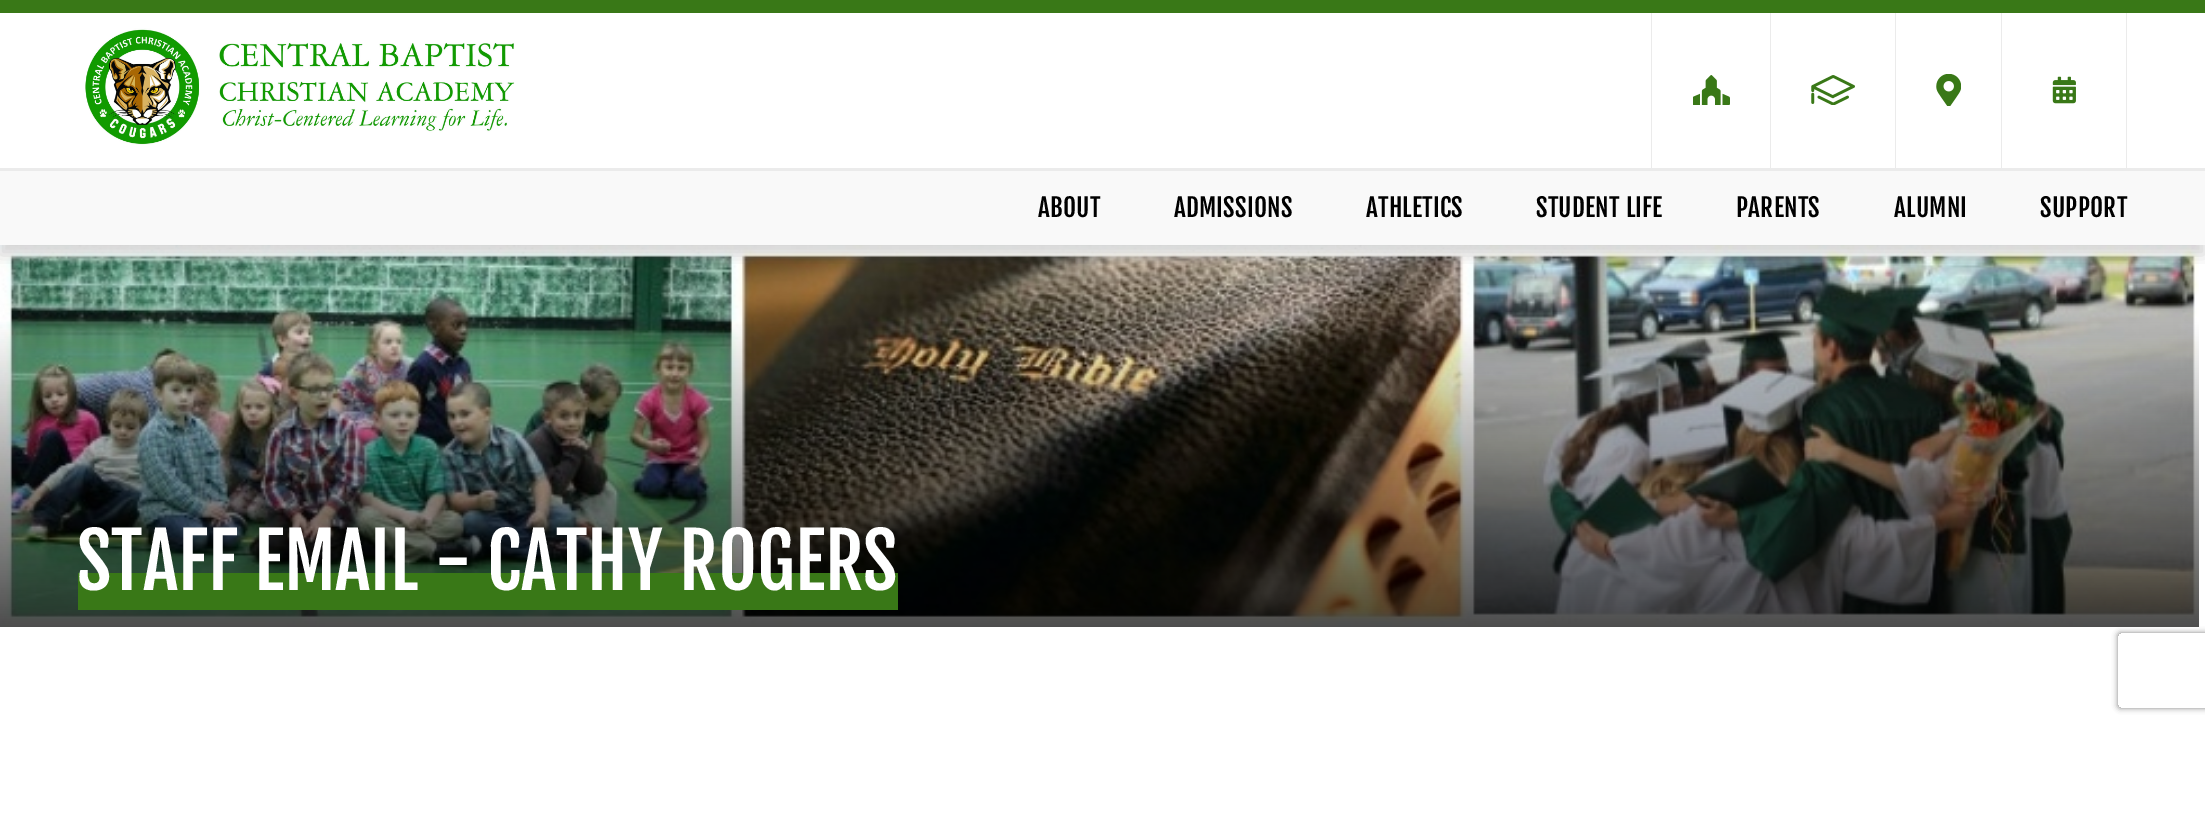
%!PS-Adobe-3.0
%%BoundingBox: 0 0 2205 813
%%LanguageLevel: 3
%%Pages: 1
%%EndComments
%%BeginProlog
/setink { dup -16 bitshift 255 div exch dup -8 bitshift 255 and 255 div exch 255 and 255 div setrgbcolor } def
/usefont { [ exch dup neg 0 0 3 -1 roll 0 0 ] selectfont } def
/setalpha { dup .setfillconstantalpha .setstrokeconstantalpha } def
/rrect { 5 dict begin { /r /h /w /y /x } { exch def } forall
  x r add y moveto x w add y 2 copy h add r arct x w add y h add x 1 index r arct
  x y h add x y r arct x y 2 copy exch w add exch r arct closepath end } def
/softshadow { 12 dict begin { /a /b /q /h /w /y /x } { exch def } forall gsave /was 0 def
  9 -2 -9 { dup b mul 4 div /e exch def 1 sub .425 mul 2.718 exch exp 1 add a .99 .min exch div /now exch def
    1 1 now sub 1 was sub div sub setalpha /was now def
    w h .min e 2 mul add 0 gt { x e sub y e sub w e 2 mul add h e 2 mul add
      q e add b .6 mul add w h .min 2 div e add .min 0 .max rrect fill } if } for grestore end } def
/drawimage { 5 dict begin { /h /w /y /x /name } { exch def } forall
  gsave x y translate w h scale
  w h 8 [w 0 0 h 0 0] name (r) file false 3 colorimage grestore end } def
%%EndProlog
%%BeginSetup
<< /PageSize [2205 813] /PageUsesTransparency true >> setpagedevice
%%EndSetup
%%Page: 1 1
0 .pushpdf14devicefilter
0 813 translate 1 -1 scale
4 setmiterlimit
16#FFFFFF setink
0 0 2205 813 rectfill
gsave
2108 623 moveto 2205 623 lineto 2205 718 lineto 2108 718 lineto closepath 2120.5 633 moveto 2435.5 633 lineto 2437 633 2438 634 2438 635.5 curveto 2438 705.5 lineto 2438 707 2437 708 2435.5 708 curveto 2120.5 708 lineto 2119 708 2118 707 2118 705.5 curveto 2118 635.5 lineto 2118 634 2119 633 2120.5 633 curveto closepath eoclip newpath
16#808080 setink
2118 633 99 75 2.5 3 1 softshadow
grestore
(img6.raw) 0 245 2199 382 drawimage
gsave
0 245 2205 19 rectclip
16#000000 setink
0 10 2205 245 0 7.5 0.16 softshadow
grestore
16#397817 setink
0 0 2205 13 rectfill
16#EBEBEB setink
0 168 2205 3 rectfill
(img1.raw) 85 28 430 117 drawimage
1770 13 1 155 rectfill
1651 13 1 155 rectfill
(img2.raw) 1693 75 37 30 drawimage
1895 13 1 155 rectfill
(img3.raw) 1811 75 44 30 drawimage
2001 13 1 155 rectfill
(img4.raw) 1936 74 25 32 drawimage
2126 13 1 155 rectfill
(img5.raw) 2052 76 24 28 drawimage
16#F9F9F9 setink
0 171 2205 74 rectfill
/FjallaOne-Regular 25 usefont
16#000000 setink
1038 217 moveto 0.25 0 (ABOUT) ashow
1174 217 moveto 0.25 0 (ADMISSIONS) ashow
1366 217 moveto 0.25 0 (ATHLETICS) ashow
1536 217 moveto 0.25 0 (STUDENT LIFE) ashow
1736 217 moveto 0.25 0 (PARENTS) ashow
1894 217 moveto 0.25 0 (ALUMNI) ashow
2040 217 moveto 0.25 0 (SUPPORT) ashow
16#397817 setink
78 573 820 37 rectfill
/FjallaOne-Regular 75 usefont
16#FFFFFF setink
77 590 moveto (STAFF EMAIL - CATHY ROGERS) show
.poppdf14devicefilter showpage
%%EOF
